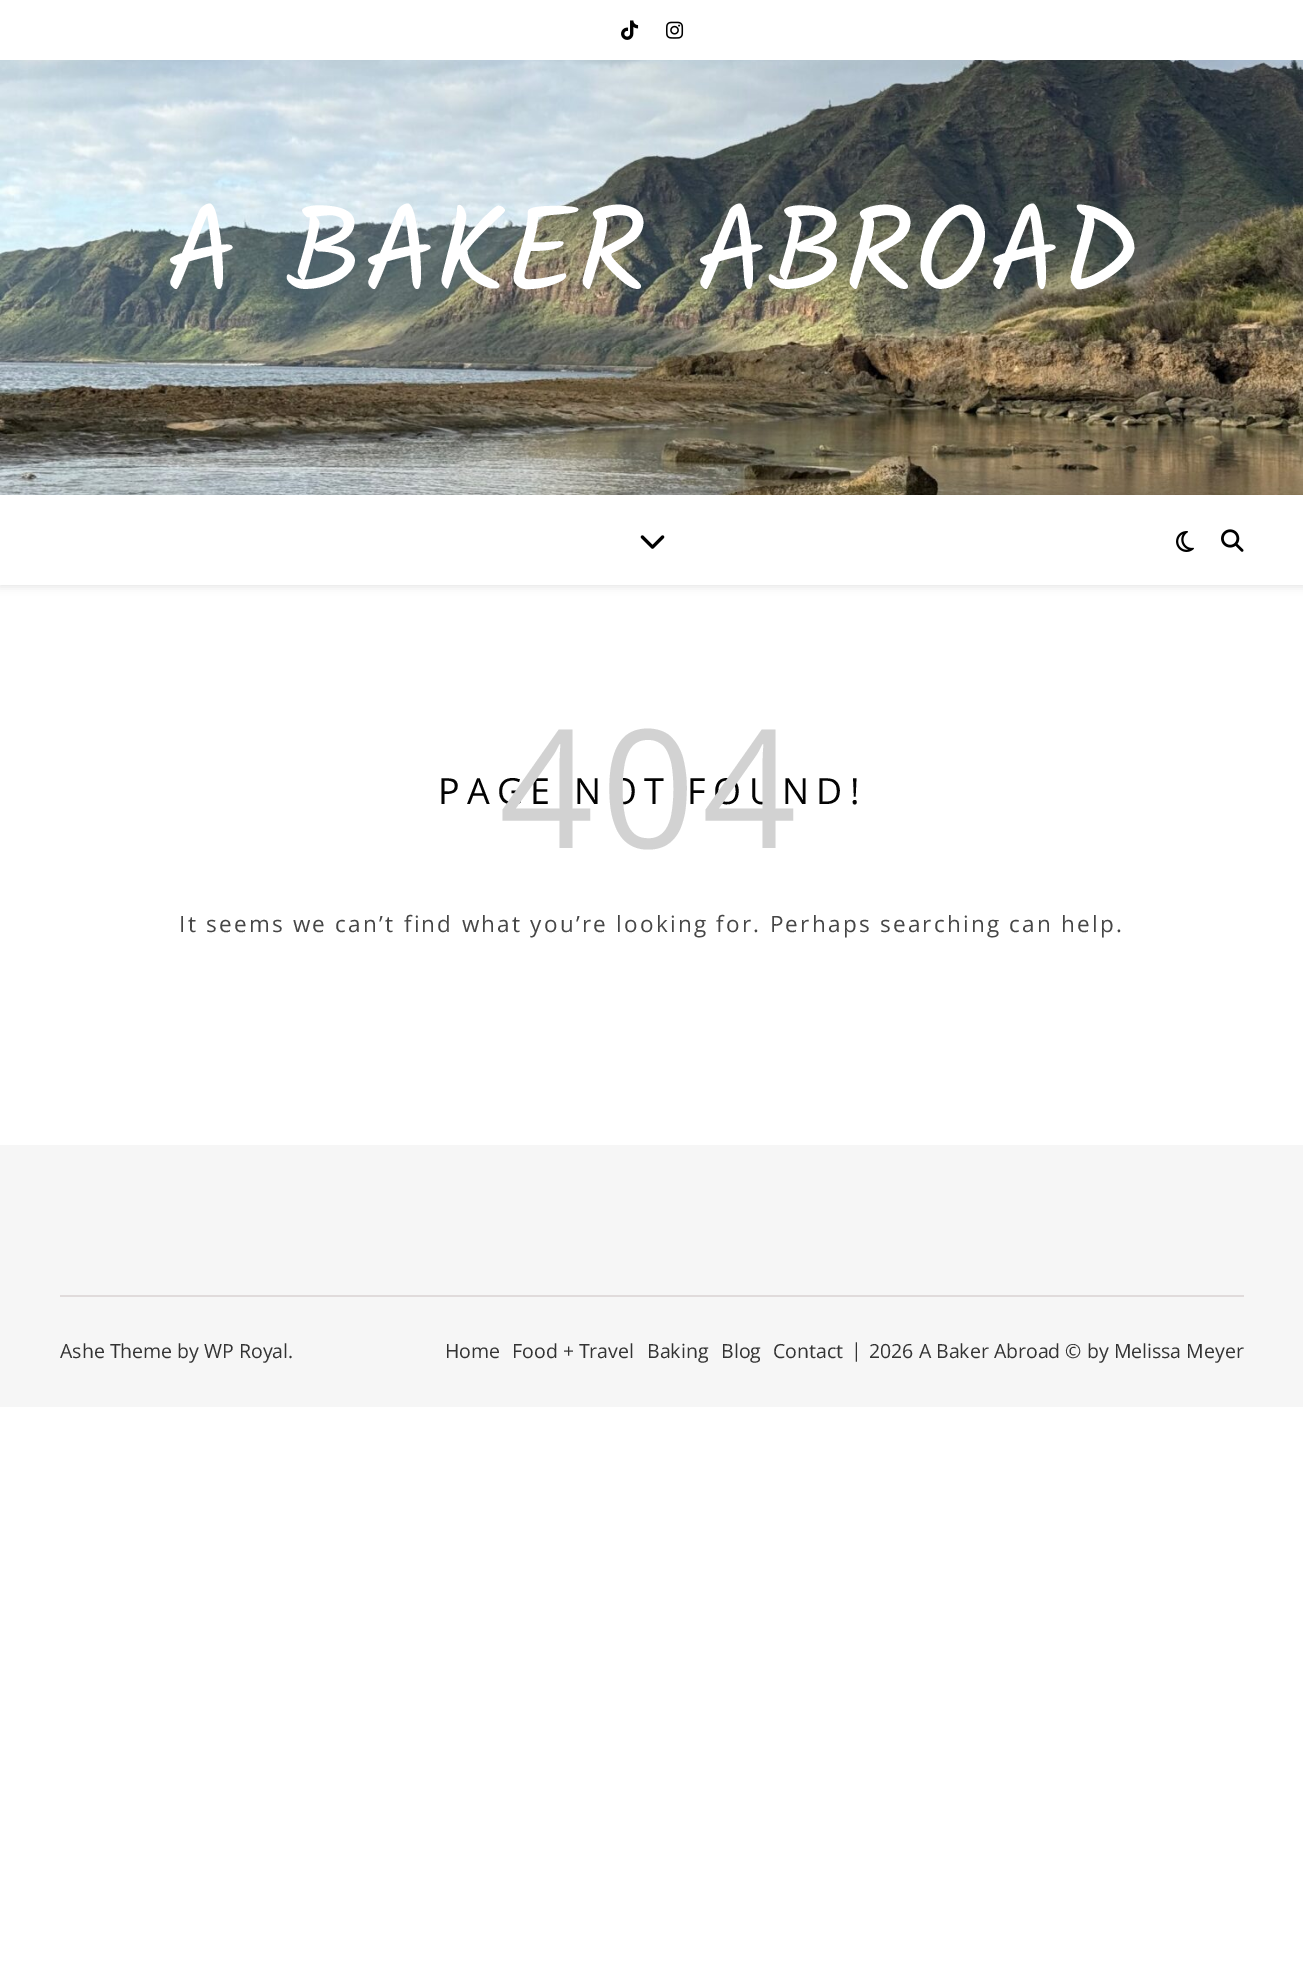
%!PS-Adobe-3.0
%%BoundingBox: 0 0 1303 1984
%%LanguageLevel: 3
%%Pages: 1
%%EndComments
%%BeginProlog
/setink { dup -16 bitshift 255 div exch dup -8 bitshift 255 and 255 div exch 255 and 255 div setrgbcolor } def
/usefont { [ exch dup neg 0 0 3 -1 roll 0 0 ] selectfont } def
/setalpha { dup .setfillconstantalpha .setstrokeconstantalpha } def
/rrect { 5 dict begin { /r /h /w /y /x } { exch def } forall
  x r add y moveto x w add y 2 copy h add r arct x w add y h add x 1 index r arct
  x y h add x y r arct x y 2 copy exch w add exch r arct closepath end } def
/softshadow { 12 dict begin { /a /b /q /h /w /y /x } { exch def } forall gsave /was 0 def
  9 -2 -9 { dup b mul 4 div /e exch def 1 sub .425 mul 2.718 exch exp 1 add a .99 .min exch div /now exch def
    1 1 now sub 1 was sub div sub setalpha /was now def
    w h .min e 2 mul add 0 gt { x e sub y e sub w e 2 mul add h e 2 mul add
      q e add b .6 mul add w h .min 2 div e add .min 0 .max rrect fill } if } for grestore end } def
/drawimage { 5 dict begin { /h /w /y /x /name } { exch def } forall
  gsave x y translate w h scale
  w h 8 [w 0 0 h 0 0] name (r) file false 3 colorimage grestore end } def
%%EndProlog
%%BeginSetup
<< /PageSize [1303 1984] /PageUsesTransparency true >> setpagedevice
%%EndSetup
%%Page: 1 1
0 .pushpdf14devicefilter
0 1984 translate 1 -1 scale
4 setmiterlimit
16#FFFFFF setink
0 0 1303 1984 rectfill
(img1.raw) 621 20 18 20 drawimage
(img2.raw) 666 21 18 18 drawimage
(img3.raw) 0 60 1303 435 drawimage
/Kalam-Regular 120 usefont
165 291 moveto (A BAKER ABROAD) show
gsave
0 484 moveto 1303 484 lineto 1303 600 lineto 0 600 lineto closepath 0 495 moveto 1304 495 lineto 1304 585 lineto 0 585 lineto closepath eoclip newpath
16#000000 setink
0 497 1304 90 0 4 0.1 softshadow
grestore
(img4.raw) 640 535 25 14 drawimage
(img5.raw) 1176 531 18 21 drawimage
(img6.raw) 1221 529 23 23 drawimage
/OpenSans-Regular 36 usefont
16#030303 setink
438 804 moveto 7.25 0 (PAGE NOT FOUND!) ashow
/OpenSans-Regular 165 usefont
16#D2D2D2 setink
499 848 moveto 7.25 0 (404) ashow
/OpenSans-Regular 22.5 usefont
16#464646 setink
179 932 moveto 2.25 0 (It seems we can’t find what you’re looking for. Perhaps searching can help.) ashow
16#F6F6F6 setink
0 1145 1303 262 rectfill
16#E0DBDB setink
60 1295 1184 2 rectfill
/OpenSans-Regular 19.5 usefont
16#333333 setink
[
    [(Ashe Theme by WP Royal.) 60 1358]
    [(Home) 445 1358]
    [(Food + Travel) 512 1358]
    [(Baking) 647 1358]
    [(Blog) 721 1358]
    [(Contact) 773 1358]
    [(|) 851 1357]
    [(2026 A Baker Abroad © by Melissa Meyer) 869 1358]
] { aload pop moveto show } forall
.poppdf14devicefilter showpage
%%EOF
